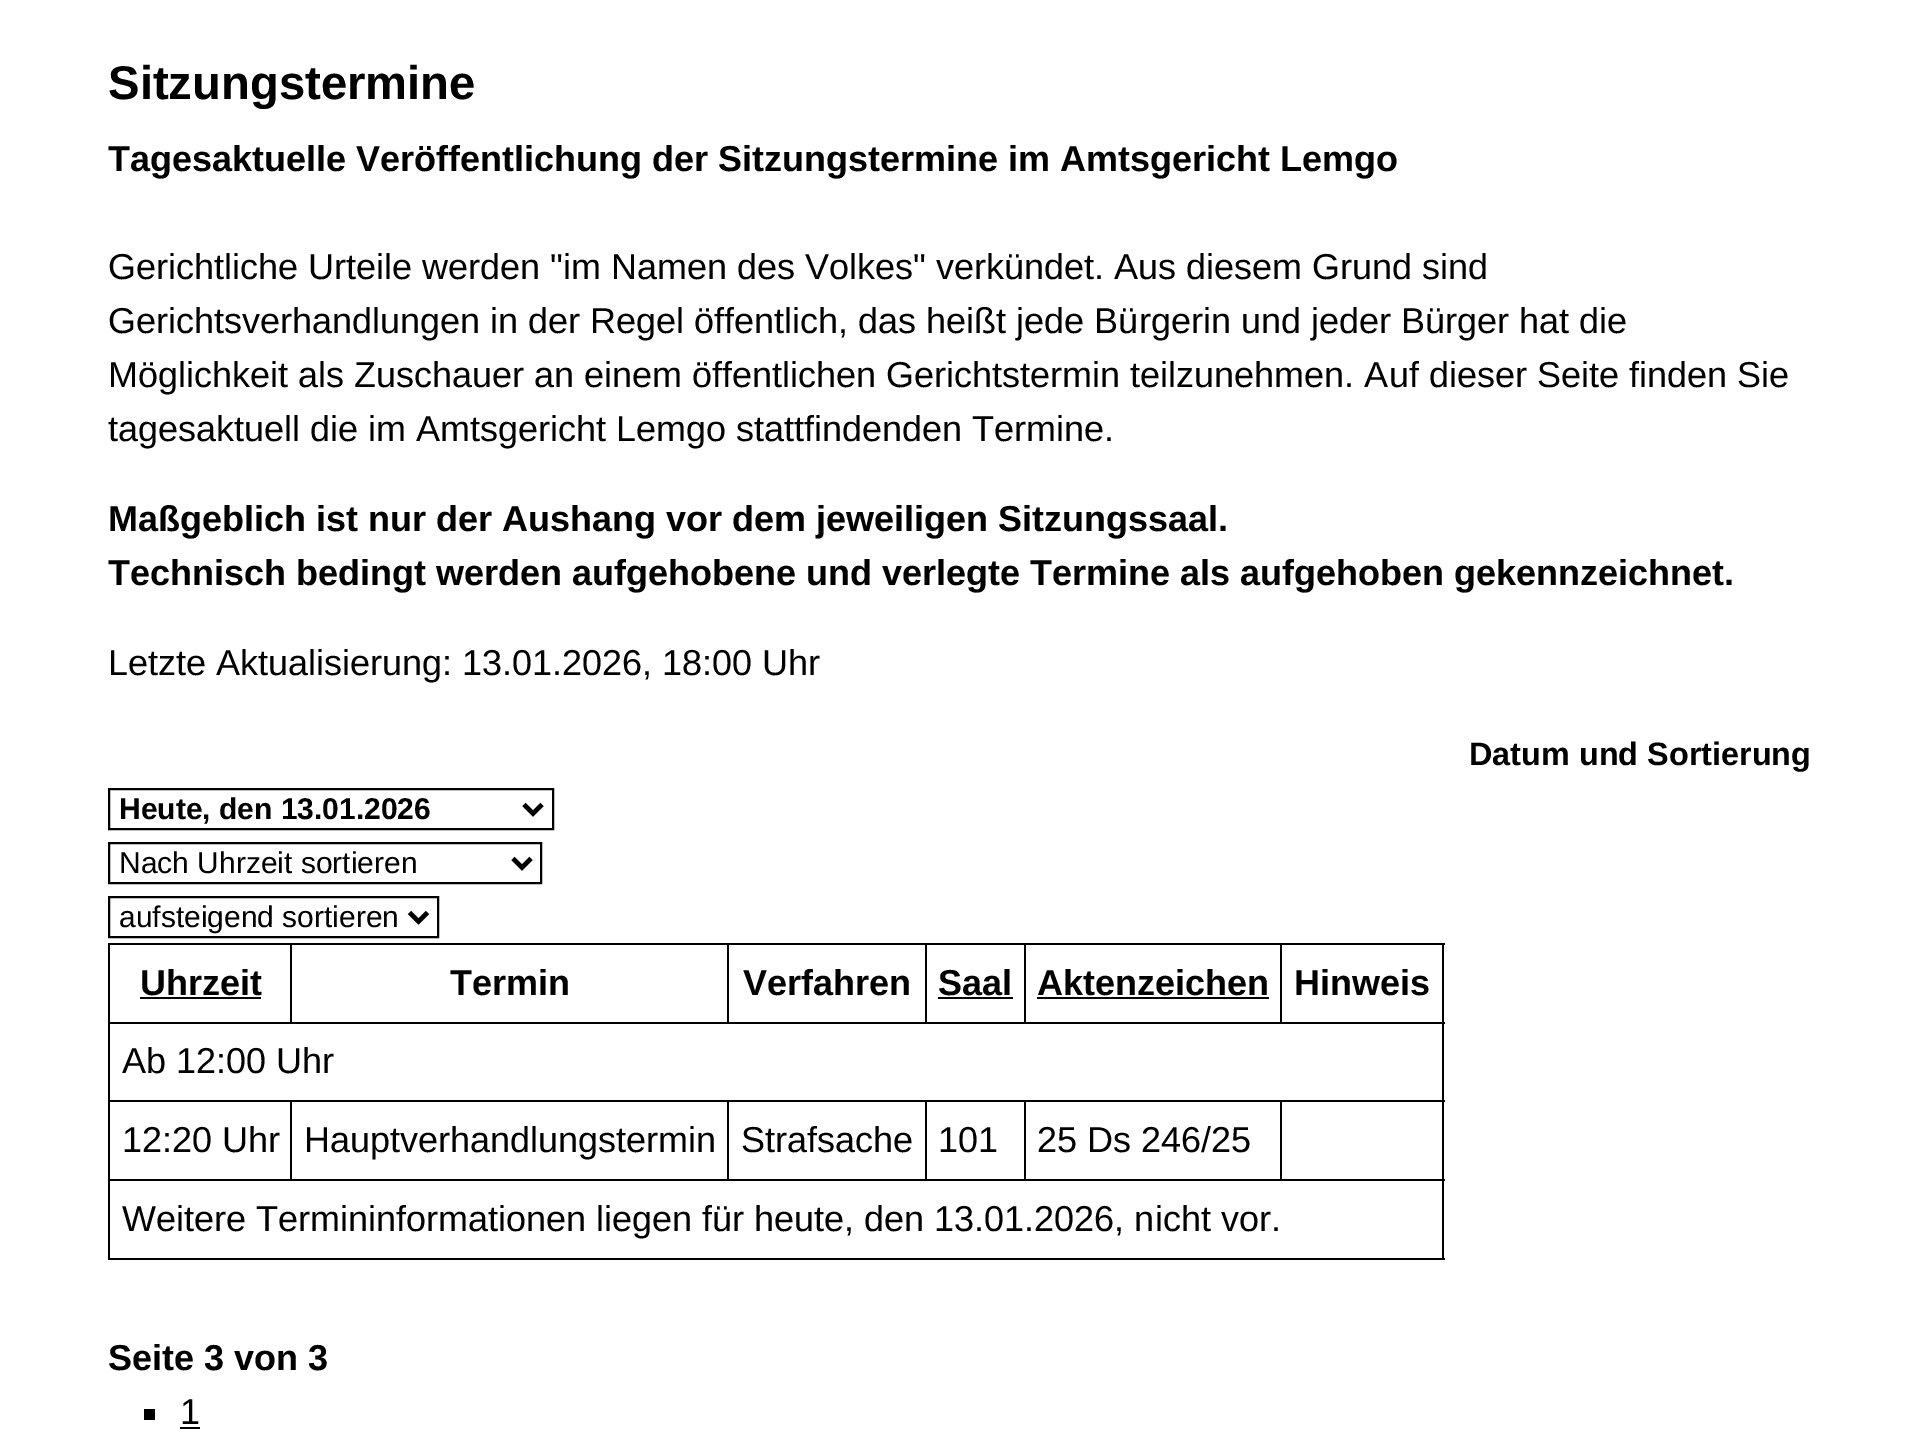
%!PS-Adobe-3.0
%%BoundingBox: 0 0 1919 1439
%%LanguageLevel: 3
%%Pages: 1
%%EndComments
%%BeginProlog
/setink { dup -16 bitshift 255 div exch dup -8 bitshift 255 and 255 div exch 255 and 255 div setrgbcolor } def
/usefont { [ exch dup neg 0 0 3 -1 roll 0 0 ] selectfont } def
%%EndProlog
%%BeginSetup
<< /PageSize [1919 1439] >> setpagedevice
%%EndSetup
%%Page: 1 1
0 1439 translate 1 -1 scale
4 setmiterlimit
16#FFFFFF setink
0 0 1919 1439 rectfill
/LiberationSans-Bold 47.25 usefont
16#000000 setink
108 99 moveto (Sitzungstermine) show
/LiberationSans-Bold 36 usefont
108 171 moveto (Tagesaktuelle Veröffentlichung der Sitzungstermine im Amtsgericht Lemgo) show
/LiberationSans-Regular 36 usefont
[
    [(Gerichtliche Urteile werden "im Namen des Volkes" verkündet. Aus diesem Grund sind) 108 279]
    [(Gerichtsverhandlungen in der Regel öffentlich, das heißt jede Bürgerin und jeder Bürger hat die) 108 333]
    [(Möglichkeit als Zuschauer an einem öffentlichen Gerichtstermin teilzunehmen. Auf dieser Seite finden Sie) 108 387]
    [(tagesaktuell die im Amtsgericht Lemgo stattfindenden Termine.) 108 441]
] { aload pop moveto show } forall
/LiberationSans-Bold 36 usefont
108 531 moveto (Maßgeblich ist nur der Aushang vor dem jeweiligen Sitzungssaal.) show
108 585 moveto (Technisch bedingt werden aufgehobene und verlegte Termine als aufgehoben gekennzeichnet.) show
/LiberationSans-Regular 36 usefont
108 675 moveto (Letzte Aktualisierung: 13.01.2026, 18:00 Uhr) show
/LiberationSans-Bold 32.4 usefont
1469 765 moveto (Datum und Sortierung) show
2 setlinewidth
109 789 444 40 rectstroke
4.5 setlinewidth
524 804.5 moveto 533 813.5 lineto 542 804.5 lineto stroke
/LiberationSans-Bold 30 usefont
119 819 moveto (Heute, den 13.01.2026) show
2 setlinewidth
109 843 432 40 rectstroke
4.5 setlinewidth
513 858.5 moveto 522 867.5 lineto 531 858.5 lineto stroke
/LiberationSans-Regular 30 usefont
119 873 moveto (Nach Uhrzeit sortieren) show
2 setlinewidth
109 897 329 40 rectstroke
4.5 setlinewidth
409.5 912.5 moveto 418.5 921.5 lineto 427.5 912.5 lineto stroke
119 927 moveto (aufsteigend sortieren) show
[
    [108 943 1337 2 16#000000]
    [1442 943 2 317 16#000000]
    [108 1258 1337 2 16#000000]
    [108 943 2 317 16#000000]
] { aload pop setink rectfill } forall
/LiberationSans-Bold 36 usefont
140 995 moveto (Uhrzeit) show
[
    [140 997 121 2 16#000000]
    [108 1022 1337 2 16#000000]
    [290 943 2 81 16#000000]
] { aload pop setink rectfill } forall
450 995 moveto (Termin) show
727 943 2 81 rectfill
743 995 moveto (Verfahren) show
925 943 2 81 rectfill
938 995 moveto (Saal) show
938 997 75 2 rectfill
1024 943 2 81 rectfill
1037 995 moveto (Aktenzeichen) show
1037 997 232 2 rectfill
1280 943 2 81 rectfill
1294 995 moveto (Hinweis) show
/LiberationSans-Regular 36 usefont
122 1073 moveto (Ab 12:00 Uhr) show
[
    [1280 1100 165 2 16#000000]
    [108 1179 1337 2 16#000000]
    [1280 1100 2 81 16#000000]
    [1024 1100 259 2 16#000000]
    [1024 1100 2 81 16#000000]
    [925 1100 101 2 16#000000]
    [925 1100 2 81 16#000000]
    [727 1100 200 2 16#000000]
    [727 1100 2 81 16#000000]
    [290 1100 439 2 16#000000]
    [290 1100 2 81 16#000000]
    [108 1100 185 2 16#000000]
] { aload pop setink rectfill } forall
[
    [(12:20 Uhr) 122 1152]
    [(Hauptverhandlungstermin) 304 1152]
    [(Strafsache) 741 1152]
    [(101) 938 1152]
    [(25 Ds 246/25) 1037 1152]
    [(Weitere Termininformationen liegen für heute, den 13.01.2026, nicht vor.) 122 1231]
] { aload pop moveto show } forall
/LiberationSans-Bold 36 usefont
108 1370 moveto (Seite 3 von 3) show
144 1409 11 11 rectfill
/LiberationSans-Regular 36 usefont
180 1424 moveto (1) show
180 1427 20 2 rectfill
showpage
%%EOF
